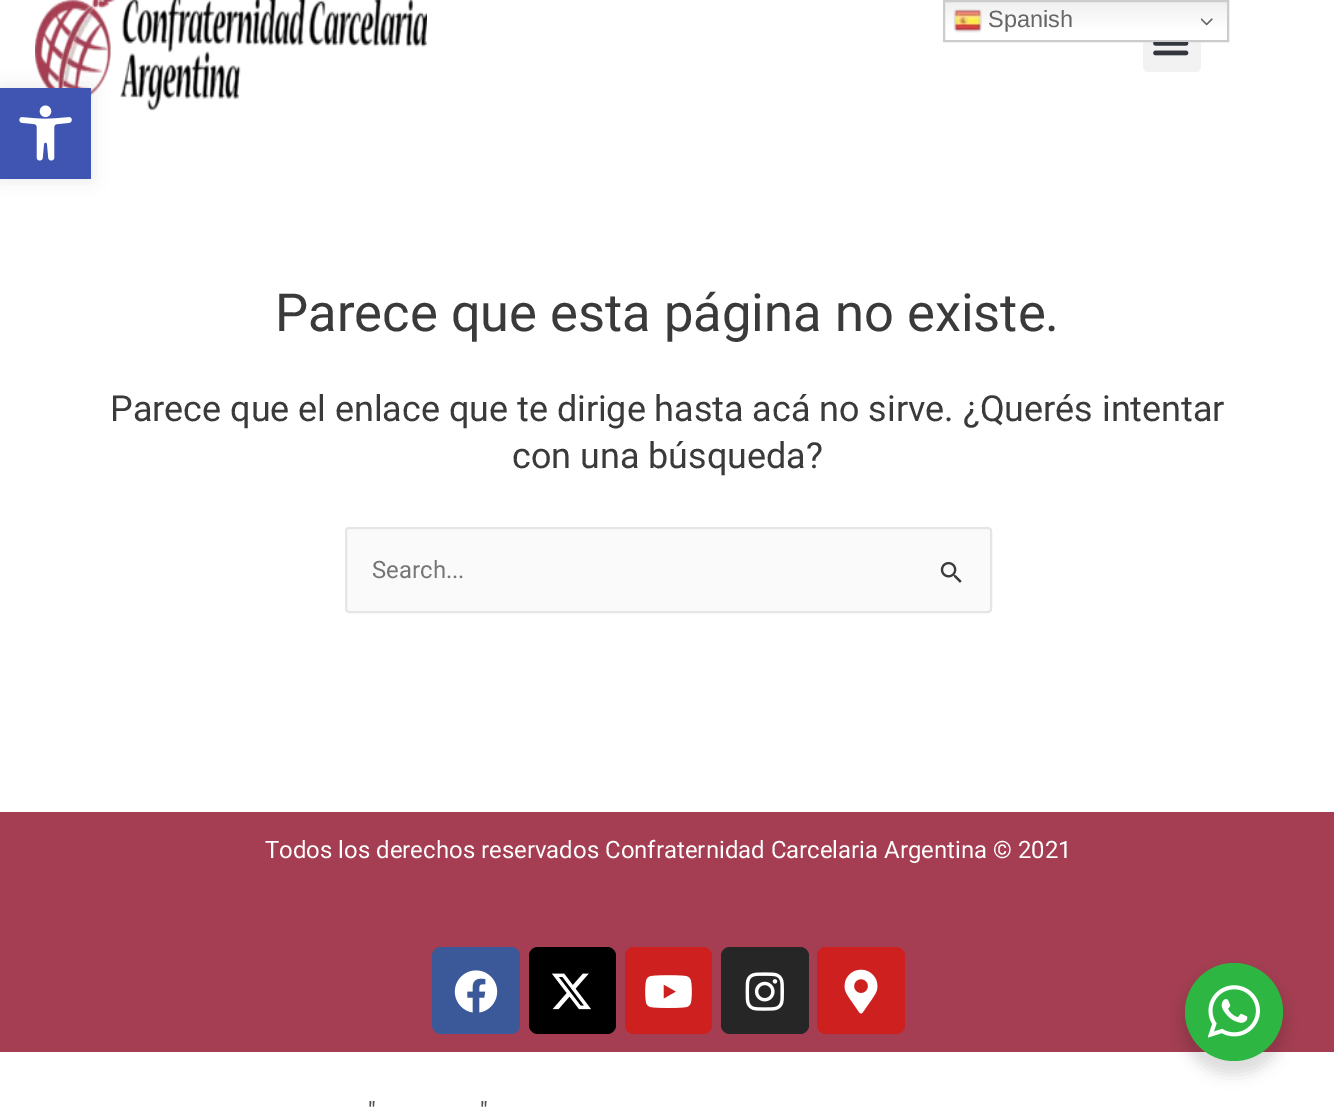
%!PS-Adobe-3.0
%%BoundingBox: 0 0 1334 1112
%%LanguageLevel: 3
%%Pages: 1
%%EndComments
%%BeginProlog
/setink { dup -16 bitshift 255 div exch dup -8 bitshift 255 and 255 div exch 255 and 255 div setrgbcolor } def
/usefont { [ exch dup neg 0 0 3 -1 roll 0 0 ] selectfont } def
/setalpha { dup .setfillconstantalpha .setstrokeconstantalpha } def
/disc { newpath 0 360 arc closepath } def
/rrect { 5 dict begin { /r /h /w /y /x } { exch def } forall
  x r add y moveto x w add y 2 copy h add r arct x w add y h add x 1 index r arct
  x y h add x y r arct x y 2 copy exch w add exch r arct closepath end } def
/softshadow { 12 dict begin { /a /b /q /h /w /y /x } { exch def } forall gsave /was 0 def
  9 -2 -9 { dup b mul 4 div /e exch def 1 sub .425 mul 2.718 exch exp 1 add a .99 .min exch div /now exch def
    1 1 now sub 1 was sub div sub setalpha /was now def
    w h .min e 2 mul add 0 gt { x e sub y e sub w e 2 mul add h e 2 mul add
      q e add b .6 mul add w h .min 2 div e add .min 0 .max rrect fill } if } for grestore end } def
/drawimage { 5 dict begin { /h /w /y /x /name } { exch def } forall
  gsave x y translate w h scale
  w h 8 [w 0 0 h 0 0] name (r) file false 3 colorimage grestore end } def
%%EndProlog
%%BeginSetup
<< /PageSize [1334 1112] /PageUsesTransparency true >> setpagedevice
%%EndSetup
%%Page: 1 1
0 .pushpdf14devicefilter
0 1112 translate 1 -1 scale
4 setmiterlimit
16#FFFFFF setink
0 0 1334 1112 rectfill
16#F2F2F2 setink
1143 14 58 58 5 rrect fill
gsave 945 2 moveto 1227 2 lineto 1227 40 lineto 945 40 lineto closepath clip newpath
<< /ShadingType 2 /ColorSpace /DeviceRGB /Coords [1086 0 1086 42] /Extend [true true] /Function << /FunctionType 3 /Domain [0 1] /Functions [<< /FunctionType 2 /Domain [0 1] /C0 [0.937 0.937 0.937] /C1 [1 1 1] /N 1 >> << /FunctionType 2 /Domain [0 1] /C0 [1 1 1] /C1 [1 1 1] /N 1 >>] /Bounds [0.7] /Encode [0 1 0 1] >> >> shfill grestore
16#CCCCCC setink
2 setlinewidth
944 1 284 40 rectstroke
(img1.raw) 953 9 29 24 drawimage
/LiberationSans-Regular 23.5 usefont
16#666666 setink
988 27 moveto (Spanish) show
(img2.raw) 1201 18 12 8 drawimage
(img4.raw) 35 0 392 111 drawimage
16#000000 setink
0 88 91 91 0 9 0.1 softshadow
16#4054B2 setink
0 88 91 91 rectfill
(img3.raw) 19 105 53 56 drawimage
(img5.raw) 1153 42 36 14 drawimage
/Roboto-Regular 52.5 usefont
16#3A3A3A setink
275 331 moveto (Parece que esta página no existe.) show
/Roboto-Regular 35.9 usefont
110 421 moveto (Parece que el enlace que te dirige hasta acá no sirve. ¿Querés intentar) show
512 468 moveto (con una búsqueda?) show
16#FAFAFA setink
346 528 645 84 3 rrect gsave fill grestore
16#E5E5E5 setink
stroke
/Roboto-Regular 23.95 usefont
16#757575 setink
372 578 moveto (Search...) show
(img6.raw) 940 561 22 22 drawimage
16#A53E52 setink
0 812 1334 240 rectfill
16#FFFFFF setink
265 858 moveto (Todos los derechos reservados Confraternidad Carcelaria Argentina © 2021) show
16#3B5998 setink
432 947 88 87 9 rrect fill
(img7.raw) 454 970 44 43 drawimage
16#000000 setink
529 947 87 87 9 rrect fill
(img8.raw) 551 973 40 37 drawimage
16#CD201F setink
625 947 87 87 9 rrect fill
(img9.raw) 645 975 47 33 drawimage
16#262626 setink
721 947 88 87 9 rrect fill
(img10.raw) 745 972 39 39 drawimage
16#CD201F setink
817 947 88 87 9 rrect fill
(img11.raw) 844 969 34 45 drawimage
16#000000 setink
1181 970 105 105 52.5 7 0.14 softshadow
16#2DB742 setink
1234 1012 49 disc fill
(img12.raw) 1208 985 52 53 drawimage
16#4B4F58 setink
368 1119 moveto (") show
480 1119 moveto (") show
.poppdf14devicefilter showpage
%%EOF
